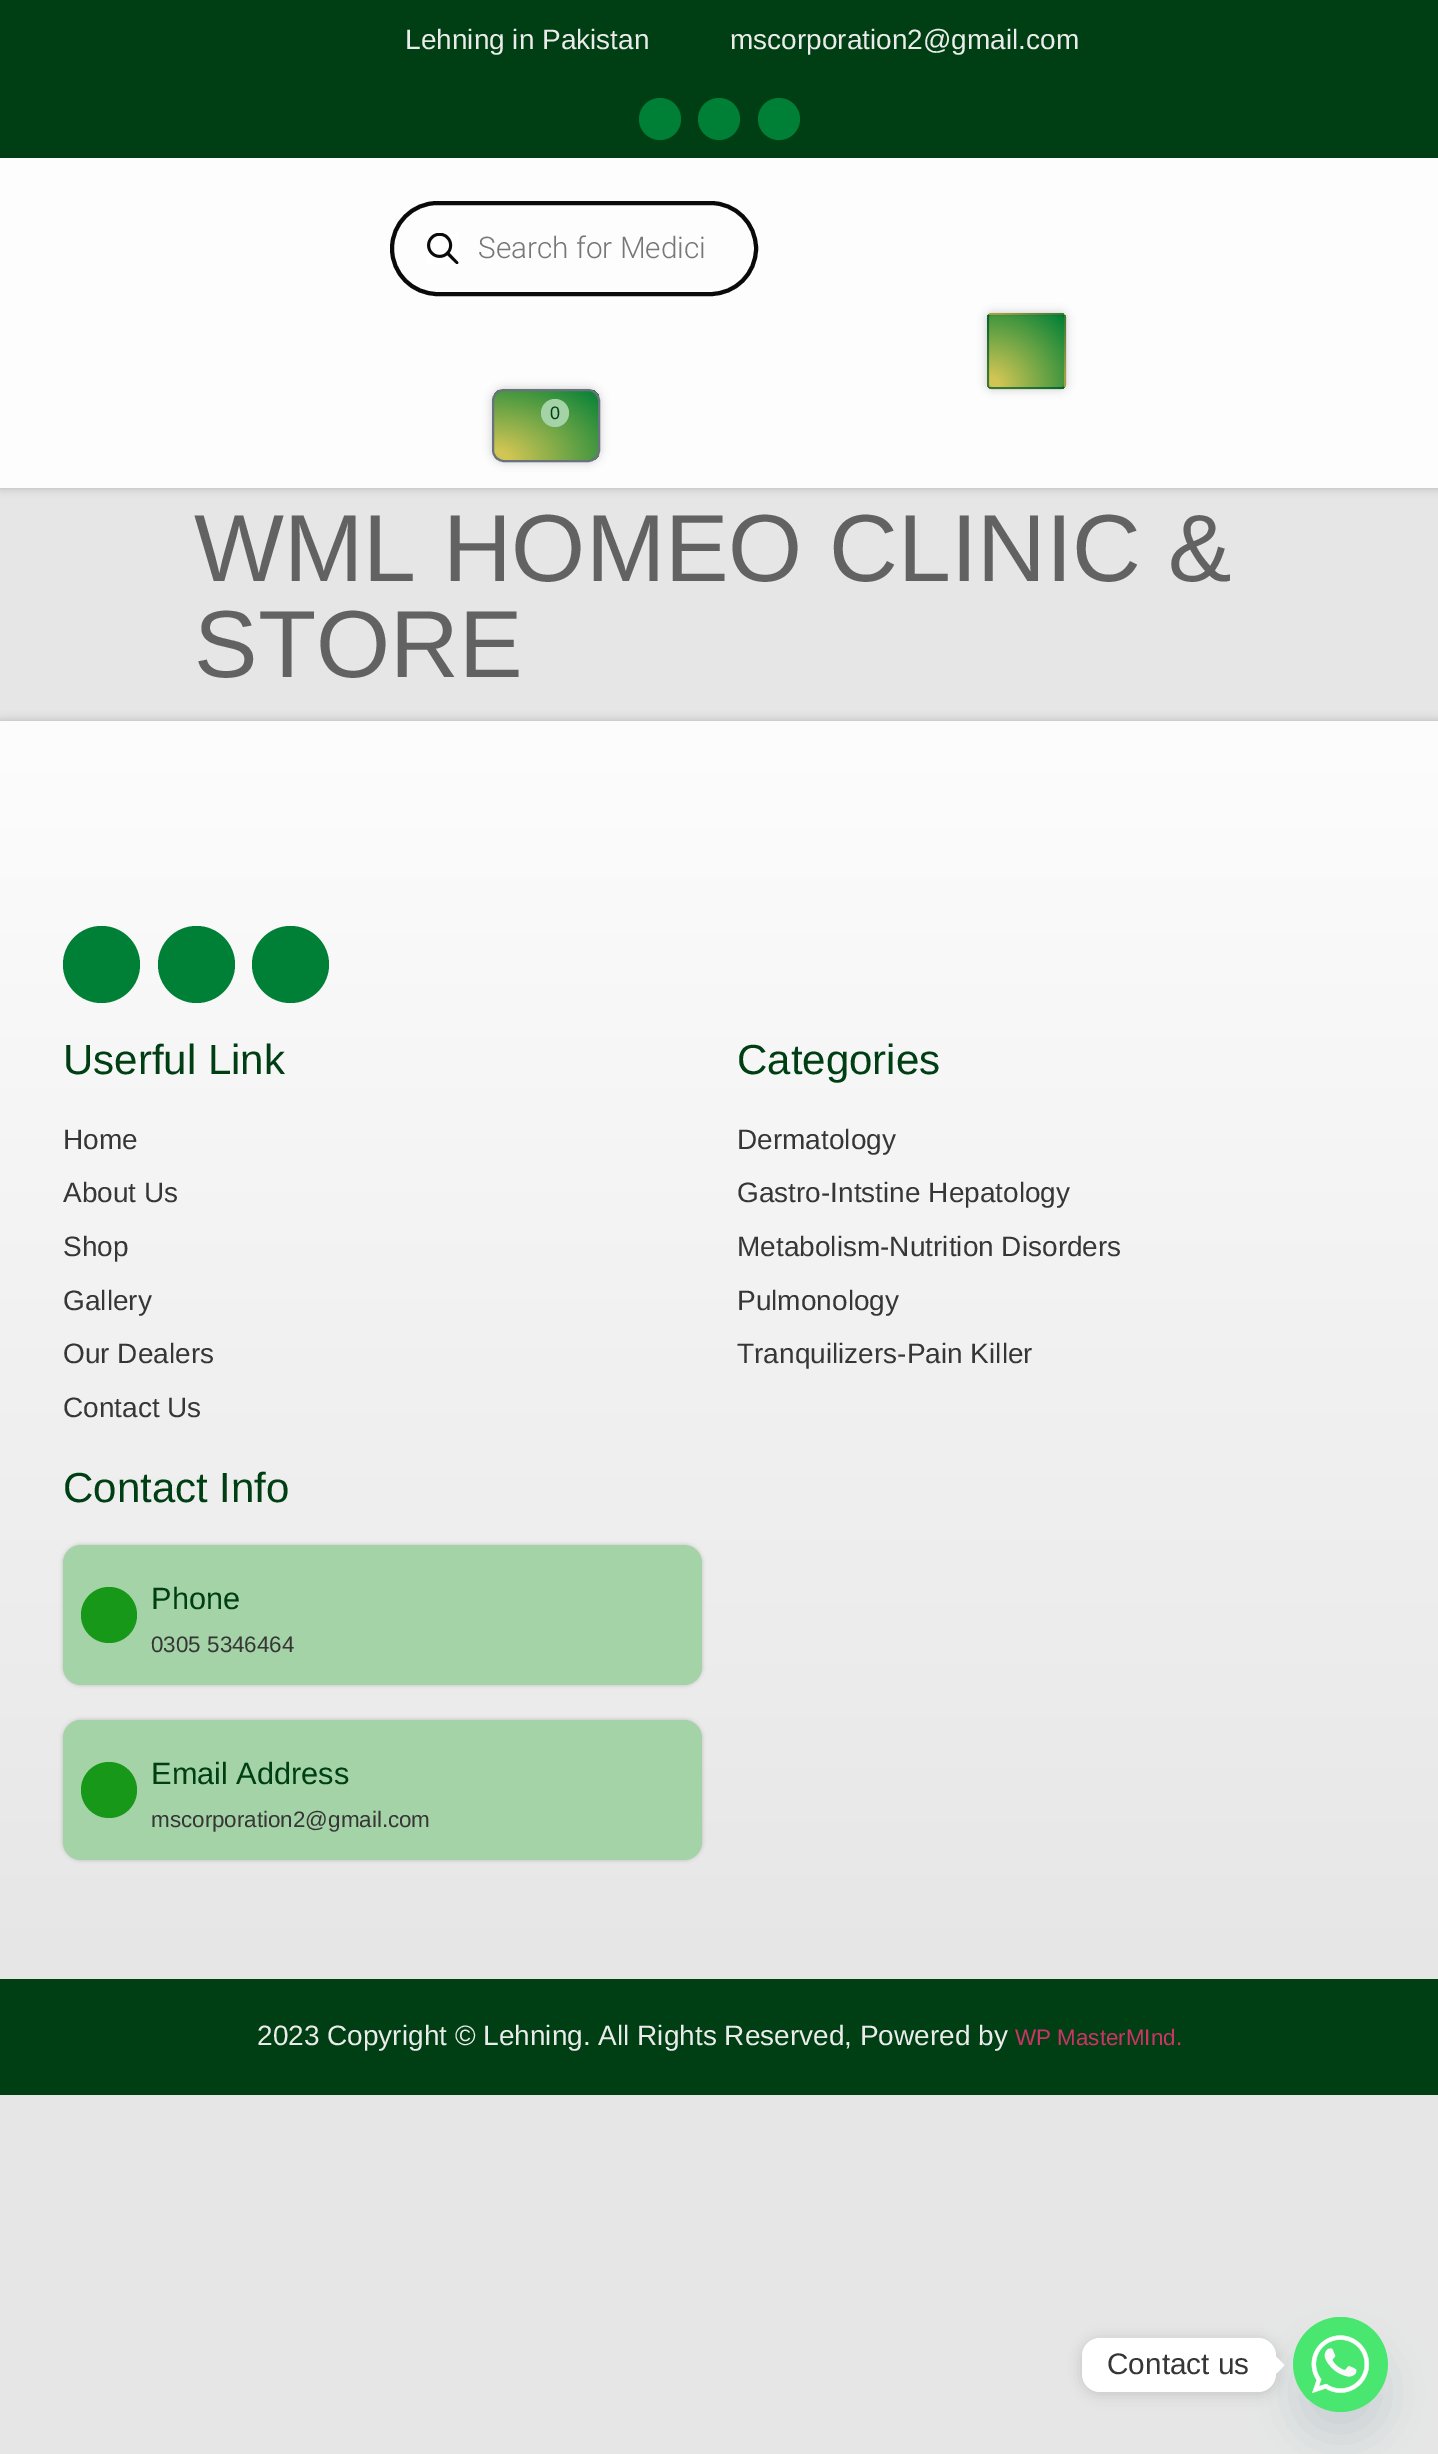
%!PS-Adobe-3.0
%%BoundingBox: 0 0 1438 2454
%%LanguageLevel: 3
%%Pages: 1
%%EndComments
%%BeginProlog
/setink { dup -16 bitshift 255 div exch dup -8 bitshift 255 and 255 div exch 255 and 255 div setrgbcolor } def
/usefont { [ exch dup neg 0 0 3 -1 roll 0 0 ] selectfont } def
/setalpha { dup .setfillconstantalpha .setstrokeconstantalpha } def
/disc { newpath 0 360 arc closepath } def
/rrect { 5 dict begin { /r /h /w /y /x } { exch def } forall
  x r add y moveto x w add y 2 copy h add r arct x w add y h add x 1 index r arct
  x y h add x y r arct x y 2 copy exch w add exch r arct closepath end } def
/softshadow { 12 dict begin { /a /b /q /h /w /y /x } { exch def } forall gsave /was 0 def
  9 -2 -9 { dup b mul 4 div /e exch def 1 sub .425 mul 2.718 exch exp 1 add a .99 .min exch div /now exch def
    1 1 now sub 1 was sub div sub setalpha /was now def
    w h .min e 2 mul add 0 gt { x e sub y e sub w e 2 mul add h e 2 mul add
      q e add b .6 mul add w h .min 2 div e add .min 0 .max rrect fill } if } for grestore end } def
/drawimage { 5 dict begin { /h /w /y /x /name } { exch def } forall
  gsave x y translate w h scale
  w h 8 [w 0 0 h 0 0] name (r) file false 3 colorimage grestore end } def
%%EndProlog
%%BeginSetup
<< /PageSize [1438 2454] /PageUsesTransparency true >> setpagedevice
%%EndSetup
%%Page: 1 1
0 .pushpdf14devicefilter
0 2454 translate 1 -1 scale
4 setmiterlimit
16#E6E6E6 setink
0 0 1438 2454 rectfill
16#000000 setink
0 158 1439 330 0 4.5 0.2 softshadow
16#003F13 setink
0 0 1438 158 rectfill
/LiberationSans-Regular 28 usefont
16#EBEBEB setink
405 49 moveto (Lehning in Pakistan) show
730 49 moveto (mscorporation2@gmail.com) show
16#008036 setink
660 119 21 disc fill
719 119 21 disc fill
779 119 21 disc fill
16#FDFDFD setink
0 158 1438 330 rectfill
16#0A0A0A setink
4 setlinewidth
392 203 364 91 45.5 rrect stroke
(img1.raw) 427 233 32 31 drawimage
/Roboto-Light 29.75 usefont
16#777777 setink
478 258 moveto (Search for Medici) show
16#000000 setink
987 313 79 76 5 4.5 0.2 softshadow
gsave
987 313 79 76 5 rrect clip newpath
gsave 987 314 moveto 989 314 lineto 989 315 lineto 987 315 lineto closepath clip newpath 914 315 translate 106 101 scale
<< /ShadingType 3 /ColorSpace /DeviceRGB /Coords [0 0 0 0 0 1] /Extend [true true] /Function << /FunctionType 3 /Domain [0 1] /Functions [<< /FunctionType 2 /Domain [0 1] /C0 [0.82 0.776 0.329] /C1 [0.82 0.776 0.329] /N 1 >> << /FunctionType 2 /Domain [0 1] /C0 [0.82 0.776 0.329] /C1 [0 0.502 0.212] /N 1 >>] /Bounds [0.1] /Encode [0 1 0 1] >> >> shfill grestore
gsave 989 313 moveto 1064 313 lineto 1064 315 lineto 989 315 lineto closepath clip newpath 989 315 translate 106 101 scale
<< /ShadingType 3 /ColorSpace /DeviceRGB /Coords [0 0 0 0 0 1] /Extend [true true] /Function << /FunctionType 3 /Domain [0 1] /Functions [<< /FunctionType 2 /Domain [0 1] /C0 [0.82 0.776 0.329] /C1 [0.82 0.776 0.329] /N 1 >> << /FunctionType 2 /Domain [0 1] /C0 [0.82 0.776 0.329] /C1 [0 0.502 0.212] /N 1 >>] /Bounds [0.1] /Encode [0 1 0 1] >> >> shfill grestore
gsave 1064 314 moveto 1066 314 lineto 1066 315 lineto 1064 315 lineto closepath clip newpath 1064 315 translate 106 101 scale
<< /ShadingType 3 /ColorSpace /DeviceRGB /Coords [0 0 0 0 0 1] /Extend [true true] /Function << /FunctionType 3 /Domain [0 1] /Functions [<< /FunctionType 2 /Domain [0 1] /C0 [0.82 0.776 0.329] /C1 [0.82 0.776 0.329] /N 1 >> << /FunctionType 2 /Domain [0 1] /C0 [0.82 0.776 0.329] /C1 [0 0.502 0.212] /N 1 >>] /Bounds [0.1] /Encode [0 1 0 1] >> >> shfill grestore
gsave 987 315 moveto 989 315 lineto 989 387 lineto 987 387 lineto closepath clip newpath 914 387 translate 106 101 scale
<< /ShadingType 3 /ColorSpace /DeviceRGB /Coords [0 0 0 0 0 1] /Extend [true true] /Function << /FunctionType 3 /Domain [0 1] /Functions [<< /FunctionType 2 /Domain [0 1] /C0 [0.82 0.776 0.329] /C1 [0.82 0.776 0.329] /N 1 >> << /FunctionType 2 /Domain [0 1] /C0 [0.82 0.776 0.329] /C1 [0 0.502 0.212] /N 1 >>] /Bounds [0.1] /Encode [0 1 0 1] >> >> shfill grestore
grestore
gsave 989 315 moveto 1064 315 lineto 1064 387 lineto 989 387 lineto closepath clip newpath 989 387 translate 106 101 scale
<< /ShadingType 3 /ColorSpace /DeviceRGB /Coords [0 0 0 0 0 1] /Extend [true true] /Function << /FunctionType 3 /Domain [0 1] /Functions [<< /FunctionType 2 /Domain [0 1] /C0 [0.82 0.776 0.329] /C1 [0.82 0.776 0.329] /N 1 >> << /FunctionType 2 /Domain [0 1] /C0 [0.82 0.776 0.329] /C1 [0 0.502 0.212] /N 1 >>] /Bounds [0.1] /Encode [0 1 0 1] >> >> shfill grestore
gsave
987 313 79 76 5 rrect clip newpath
gsave 1064 315 moveto 1066 315 lineto 1066 387 lineto 1064 387 lineto closepath clip newpath 1064 387 translate 106 101 scale
<< /ShadingType 3 /ColorSpace /DeviceRGB /Coords [0 0 0 0 0 1] /Extend [true true] /Function << /FunctionType 3 /Domain [0 1] /Functions [<< /FunctionType 2 /Domain [0 1] /C0 [0.82 0.776 0.329] /C1 [0.82 0.776 0.329] /N 1 >> << /FunctionType 2 /Domain [0 1] /C0 [0.82 0.776 0.329] /C1 [0 0.502 0.212] /N 1 >>] /Bounds [0.1] /Encode [0 1 0 1] >> >> shfill grestore
gsave 987 387 moveto 989 387 lineto 989 388 lineto 987 388 lineto closepath clip newpath 914 459 translate 106 101 scale
<< /ShadingType 3 /ColorSpace /DeviceRGB /Coords [0 0 0 0 0 1] /Extend [true true] /Function << /FunctionType 3 /Domain [0 1] /Functions [<< /FunctionType 2 /Domain [0 1] /C0 [0.82 0.776 0.329] /C1 [0.82 0.776 0.329] /N 1 >> << /FunctionType 2 /Domain [0 1] /C0 [0.82 0.776 0.329] /C1 [0 0.502 0.212] /N 1 >>] /Bounds [0.1] /Encode [0 1 0 1] >> >> shfill grestore
gsave 989 387 moveto 1064 387 lineto 1064 389 lineto 989 389 lineto closepath clip newpath 989 459 translate 106 101 scale
<< /ShadingType 3 /ColorSpace /DeviceRGB /Coords [0 0 0 0 0 1] /Extend [true true] /Function << /FunctionType 3 /Domain [0 1] /Functions [<< /FunctionType 2 /Domain [0 1] /C0 [0.82 0.776 0.329] /C1 [0.82 0.776 0.329] /N 1 >> << /FunctionType 2 /Domain [0 1] /C0 [0.82 0.776 0.329] /C1 [0 0.502 0.212] /N 1 >>] /Bounds [0.1] /Encode [0 1 0 1] >> >> shfill grestore
gsave 1064 387 moveto 1066 387 lineto 1066 388 lineto 1064 388 lineto closepath clip newpath 1064 459 translate 106 101 scale
<< /ShadingType 3 /ColorSpace /DeviceRGB /Coords [0 0 0 0 0 1] /Extend [true true] /Function << /FunctionType 3 /Domain [0 1] /Functions [<< /FunctionType 2 /Domain [0 1] /C0 [0.82 0.776 0.329] /C1 [0.82 0.776 0.329] /N 1 >> << /FunctionType 2 /Domain [0 1] /C0 [0.82 0.776 0.329] /C1 [0 0.502 0.212] /N 1 >>] /Bounds [0.1] /Encode [0 1 0 1] >> >> shfill grestore
grestore
0.2 setalpha
2 setlinewidth
988 314 77 74 4 rrect stroke
1 setalpha
492 389 108 73 12 4.5 0.2 softshadow
gsave
492 389 108 73 12 rrect clip newpath
gsave 494 390 moveto 599 390 lineto 599 460 lineto 494 460 lineto closepath clip newpath 494 460 translate 148 99 scale
<< /ShadingType 3 /ColorSpace /DeviceRGB /Coords [0 0 0 0 0 1] /Extend [true true] /Function << /FunctionType 3 /Domain [0 1] /Functions [<< /FunctionType 2 /Domain [0 1] /C0 [0.82 0.776 0.329] /C1 [0.82 0.776 0.329] /N 1 >> << /FunctionType 2 /Domain [0 1] /C0 [0.82 0.776 0.329] /C1 [0 0.502 0.212] /N 1 >>] /Bounds [0.1] /Encode [0 1 0 1] >> >> shfill grestore
grestore
16#69727D setink
493 390 106 71 11 rrect stroke
16#A3D3A6 setink
555 413 14 disc fill
/LiberationSans-Regular 18 usefont
16#003F13 setink
550 419 moveto (0) show
/LiberationSans-Regular 95.25 usefont
16#626262 setink
194 581 moveto (WML HOMEO CLINIC &) show
194 677 moveto (STORE) show
16#000000 setink
0 721 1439 1258 0 4.5 0.2 softshadow
gsave 0 721 moveto 1438 721 lineto 1438 1979 lineto 0 1979 lineto closepath clip newpath
<< /ShadingType 2 /ColorSpace /DeviceRGB /Coords [719 721 719 1979] /Extend [true true] /Function << /FunctionType 2 /Domain [0 1] /C0 [0.992 0.992 0.992] /C1 [0.902 0.902 0.902] /N 1 >> >> shfill grestore
16#008036 setink
101.5 964.5 38.5 disc fill
196.5 964.5 38.5 disc fill
290.5 964.5 38.5 disc fill
/LiberationSans-Regular 42 usefont
16#003F13 setink
63 1074 moveto (Userful Link) show
/LiberationSans-Regular 28 usefont
16#363636 setink
[
    [(Home) 63 1149]
    [(About Us) 63 1202]
    [(Shop) 63 1256]
    [(Gallery) 63 1310]
    [(Our Dealers) 63 1363]
    [(Contact Us) 63 1417]
] { aload pop moveto show } forall
/LiberationSans-Regular 42 usefont
16#003F13 setink
737 1074 moveto (Categories) show
/LiberationSans-Regular 28 usefont
16#363636 setink
[
    [(Dermatology) 737 1149]
    [(Gastro-Intstine Hepatology) 737 1202]
    [(Metabolism-Nutrition Disorders) 737 1256]
    [(Pulmonology) 737 1310]
    [(Tranquilizers-Pain Killer) 737 1363]
] { aload pop moveto show } forall
/LiberationSans-Regular 42 usefont
16#003F13 setink
63 1502 moveto (Contact Info) show
16#000000 setink
63 1545 639 140 18 2 0.2 softshadow
16#A3D3A6 setink
63 1545 639 140 18 rrect fill
16#179818 setink
109 1615 28 disc fill
/LiberationSans-Regular 30.75 usefont
16#003F13 setink
151 1609 moveto (Phone) show
/LiberationSans-Regular 22.4 usefont
16#363636 setink
151 1652 moveto (0305 5346464) show
16#000000 setink
63 1720 639 140 18 2 0.2 softshadow
16#A3D3A6 setink
63 1720 639 140 18 rrect fill
16#179818 setink
109 1790 28 disc fill
/LiberationSans-Regular 30.75 usefont
16#003F13 setink
151 1784 moveto (Email Address) show
/LiberationSans-Regular 22.4 usefont
16#363636 setink
151 1827 moveto (mscorporation2@gmail.com) show
16#003F13 setink
0 1979 1438 116 rectfill
/LiberationSans-Regular 28 usefont
16#EBEBEB setink
257 2045 moveto (2023 Copyright © Lehning. All Rights Reserved, Powered by) show
/LiberationSans-Regular 22.4 usefont
16#CC3366 setink
1015 2045 moveto (WP MasterMInd.) show
16#49687E setink
1293 2345 95 95 47.5 21 0.16 softshadow
16#49E670 setink
1340.5 2364.5 47.5 disc fill
(img2.raw) 1293 2317 95 77 drawimage
16#000000 setink
1082 2340 194 54 18 7 0.15 softshadow
16#FFFFFF setink
1082 2338 194 54 18 rrect fill
/LiberationSans-Regular 29.75 usefont
16#363636 setink
1107 2374 moveto (Contact us) show
16#FFFFFF setink
1276 2374 moveto 1276 2356.5 lineto 1284.5 2365 lineto closepath fill
.poppdf14devicefilter showpage
%%EOF
